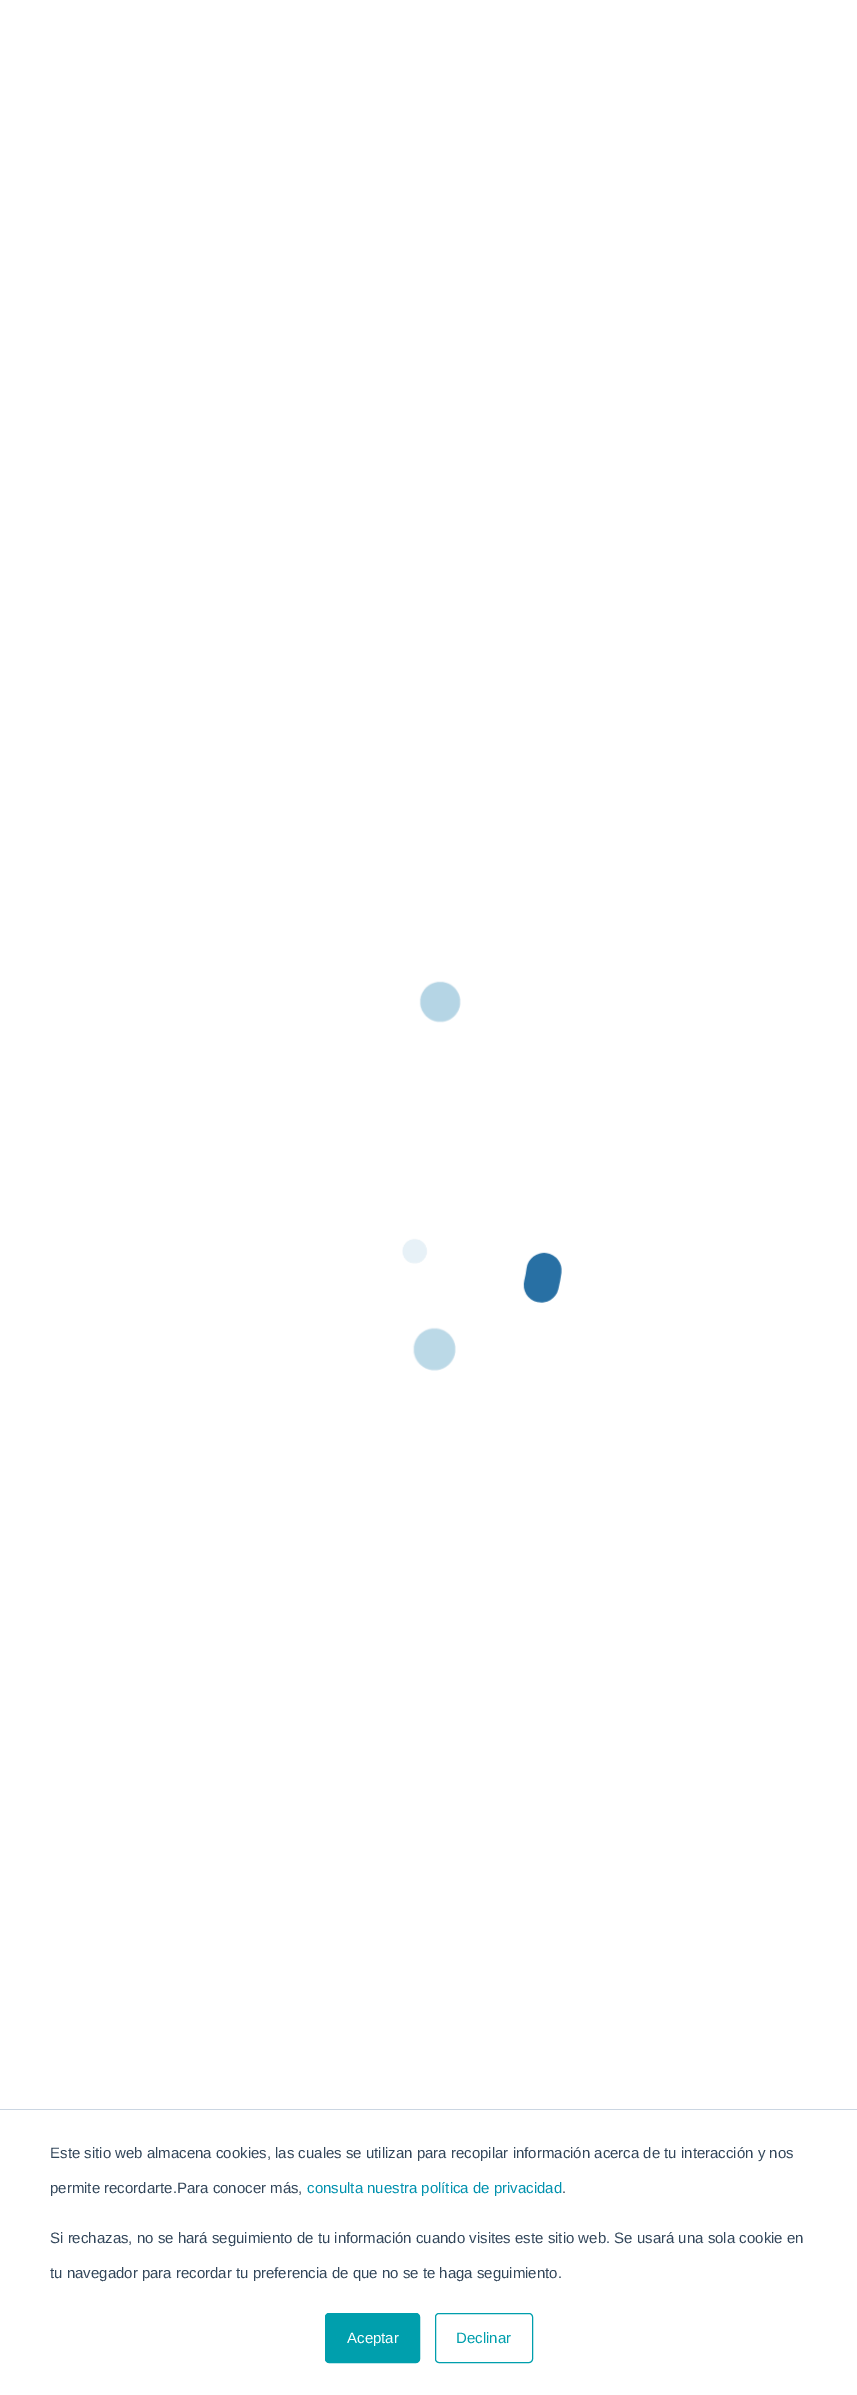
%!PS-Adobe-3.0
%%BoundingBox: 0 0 857 2395
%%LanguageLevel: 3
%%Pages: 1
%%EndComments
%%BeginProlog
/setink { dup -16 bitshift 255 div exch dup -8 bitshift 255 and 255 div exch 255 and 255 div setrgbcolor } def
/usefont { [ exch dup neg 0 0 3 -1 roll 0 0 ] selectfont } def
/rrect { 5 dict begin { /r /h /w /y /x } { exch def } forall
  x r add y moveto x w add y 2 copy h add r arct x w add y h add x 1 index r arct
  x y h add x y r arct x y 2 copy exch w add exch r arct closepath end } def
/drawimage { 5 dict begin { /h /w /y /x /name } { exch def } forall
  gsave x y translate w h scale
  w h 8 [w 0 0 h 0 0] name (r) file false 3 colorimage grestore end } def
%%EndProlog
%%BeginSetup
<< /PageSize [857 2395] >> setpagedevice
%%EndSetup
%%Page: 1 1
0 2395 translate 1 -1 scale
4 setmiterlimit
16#FFFFFF setink
0 0 857 2395 rectfill
(img1.raw) 402 981 160 390 drawimage
16#CBD6E2 setink
0 2109 857 1 rectfill
/LiberationSans-Regular 15 usefont
16#33475B setink
50 2158 moveto (Este sitio web almacena cookies, las cuales se utilizan para recopilar información acerca de tu interacción y nos) show
50 2193 moveto (permite recordarte.Para conocer más,) show
16#0091AE setink
307 2193 moveto (consulta nuestra política de privacidad) show
16#33475B setink
[
    [(.) 562 2193]
    [(Si rechazas, no se hará seguimiento de tu información cuando visites este sitio web. Se usará una sola cookie en) 50 2243]
    [(tu navegador para recordar tu preferencia de que no se te haga seguimiento.) 50 2278]
] { aload pop moveto show } forall
16#009FAD setink
325.5 2313.5 94 49 3.5 rrect gsave fill grestore
stroke
16#FFFFFF setink
347 2343 moveto (Aceptar) show
16#009FAD setink
435.5 2313.5 97 49 3.5 rrect stroke
456 2343 moveto (Declinar) show
showpage
%%EOF
